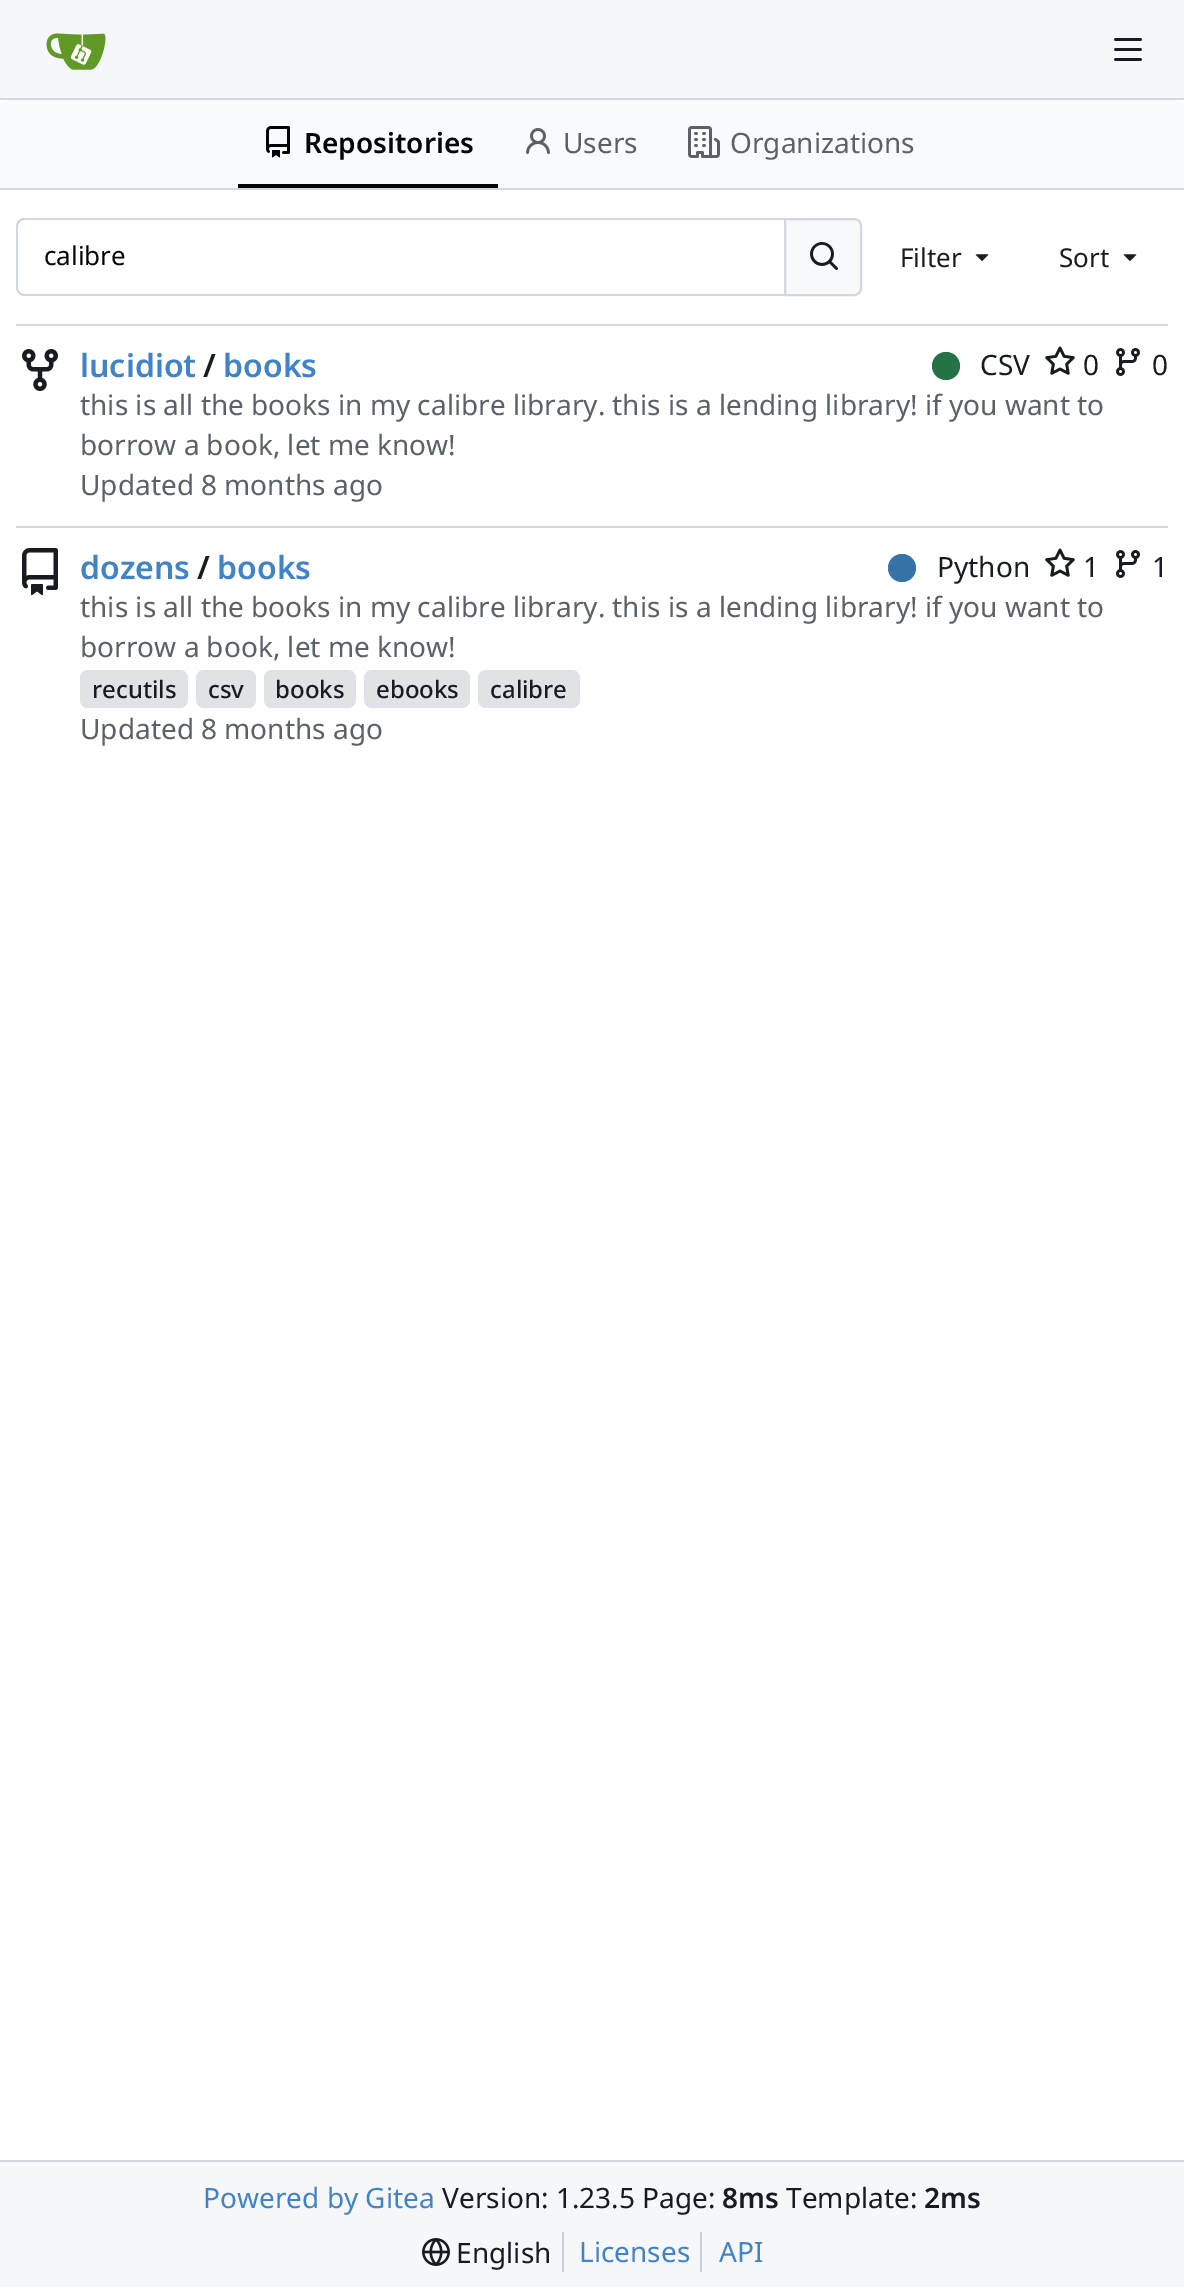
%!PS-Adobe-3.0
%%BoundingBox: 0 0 1184 2287
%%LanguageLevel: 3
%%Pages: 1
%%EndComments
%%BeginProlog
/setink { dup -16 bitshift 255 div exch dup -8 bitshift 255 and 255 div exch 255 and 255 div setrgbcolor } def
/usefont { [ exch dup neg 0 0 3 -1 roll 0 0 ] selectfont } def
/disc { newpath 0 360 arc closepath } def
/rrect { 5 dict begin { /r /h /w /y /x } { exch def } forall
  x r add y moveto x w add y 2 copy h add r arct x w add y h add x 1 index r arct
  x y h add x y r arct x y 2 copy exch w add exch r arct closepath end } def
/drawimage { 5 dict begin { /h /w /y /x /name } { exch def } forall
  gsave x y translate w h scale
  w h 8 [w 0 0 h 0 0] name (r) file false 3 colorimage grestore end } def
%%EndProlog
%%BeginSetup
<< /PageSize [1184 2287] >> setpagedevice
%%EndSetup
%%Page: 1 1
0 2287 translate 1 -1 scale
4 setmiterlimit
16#FFFFFF setink
0 0 1184 2287 rectfill
16#F6F7FA setink
0 0 1184 98 rectfill
16#D0D7DE setink
0 98 1184 2 rectfill
(img1.raw) 46 33 60 37 drawimage
(img2.raw) 1114 38 28 23 drawimage
16#F9FAFB setink
8 100 moveto 1176 100 lineto 1180.5 100 1184 103.5 1184 108 curveto 1184 190 lineto 0 190 lineto 0 108 lineto 0 103.5 3.5 100 8 100 curveto closepath fill
16#D0D7DE setink
0 188 1184 2 rectfill
16#01050A setink
238 184 260 4 rectfill
(img3.raw) 266 126 24 32 drawimage
/NotoSans-SemiBold 28 usefont
304 153 moveto (Repositories) show
(img4.raw) 526 128 24 26 drawimage
/NotoSans-Regular 28 usefont
16#5B6167 setink
563 153 moveto (Users) show
(img5.raw) 688 126 32 32 drawimage
730 153 moveto (Organizations) show
16#D0D7DE setink
24 218 moveto 784 218 lineto 784 296 lineto 24 296 lineto 20 296 16 292 16 288 curveto 16 226 lineto 16 222 20 218 24 218 curveto closepath 24 220 moveto 784 220 lineto 784 294 lineto 24 294 lineto 21 294 18 291 18 288 curveto 18 226 lineto 18 223 21 220 24 220 curveto closepath eofill
/NotoSans-Regular 26 usefont
16#01050A setink
44 265 moveto (calibre) show
16#F8F9FB setink
785 219 moveto 854 219 lineto 858 219 861 222 861 226 curveto 861 288 lineto 861 292 858 295 854 295 curveto 785 295 lineto closepath gsave fill grestore
16#D0D7DE setink
2 setlinewidth
stroke
(img6.raw) 810 242 28 28 drawimage
16#181C21 setink
900 267 moveto (Filter) show
(img7.raw) 975 254 14 7 drawimage
1059 267 moveto (Sort) show
(img7.raw) 1123 254 14 7 drawimage
16#D0D7DE setink
16 324 1152 2 rectfill
(img8.raw) 22 349 36 42 drawimage
/NotoSans-SemiBold 32 usefont
16#4183C4 setink
80 377 moveto (lucidiot) show
16#181C21 setink
203 377 moveto (/) show
16#4183C4 setink
223 377 moveto (books) show
16#237346 setink
946 366 14 disc fill
/NotoSans-Regular 28 usefont
16#181C21 setink
980 375 moveto (CSV) show
(img9.raw) 1045 346 30 29 drawimage
1083 375 moveto (0) show
(img10.raw) 1116 348 24 28 drawimage
1152 375 moveto (0) show
16#5B6167 setink
[
    [(this is all the books in my calibre library. this is a lending library! if you want to) 80 415]
    [(borrow a book, let me know!) 80 455]
    [(Updated 8 months ago) 80 495]
] { aload pop moveto show } forall
16#D0D7DE setink
16 526 1152 2 rectfill
(img11.raw) 22 548 36 48 drawimage
/NotoSans-SemiBold 32 usefont
16#4183C4 setink
80 579 moveto (dozens) show
16#181C21 setink
197 579 moveto (/) show
16#4183C4 setink
217 579 moveto (books) show
16#3572A5 setink
902 568 14 disc fill
/NotoSans-Regular 28 usefont
16#181C21 setink
937 577 moveto (Python) show
(img9.raw) 1045 548 30 29 drawimage
1083 577 moveto (1) show
(img10.raw) 1116 550 24 28 drawimage
1152 577 moveto (1) show
16#5B6167 setink
80 617 moveto (this is all the books in my calibre library. this is a lending library! if you want to) show
80 657 moveto (borrow a book, let me know!) show
16#E0E2E5 setink
80 670 108 38 8 rrect fill
/NotoSans-Medium 24 usefont
16#181C21 setink
92 698 moveto (recutils) show
16#E0E2E5 setink
196 670 60 38 8 rrect fill
16#181C21 setink
208 698 moveto (csv) show
16#E0E2E5 setink
264 670 92 38 8 rrect fill
16#181C21 setink
275 698 moveto (books) show
16#E0E2E5 setink
364 670 106 38 8 rrect fill
16#181C21 setink
376 698 moveto (ebooks) show
16#E0E2E5 setink
478 670 102 38 8 rrect fill
16#181C21 setink
490 698 moveto (calibre) show
/NotoSans-Regular 28 usefont
16#5B6167 setink
80 739 moveto (Updated 8 months ago) show
16#F6F7FA setink
0 2162 1184 125 rectfill
16#D0D7DE setink
0 2160 1184 2 rectfill
16#4183C4 setink
203 2208 moveto (Powered by Gitea) show
16#181C21 setink
442 2208 moveto (Version: 1.23.5 Page:) show
/NotoSans-SemiBold 28 usefont
722 2208 moveto (8ms) show
/NotoSans-Regular 28 usefont
786 2208 moveto (Template:) show
/NotoSans-SemiBold 28 usefont
924 2208 moveto (2ms) show
(img12.raw) 422 2238 28 28 drawimage
/NotoSans-Regular 28 usefont
456 2263 moveto (English) show
16#C7CED5 setink
562 2232 2 40 rectfill
16#4183C4 setink
579 2262 moveto (Licenses) show
16#C7CED5 setink
700 2232 2 40 rectfill
16#4183C4 setink
719 2262 moveto (API) show
showpage
%%EOF
